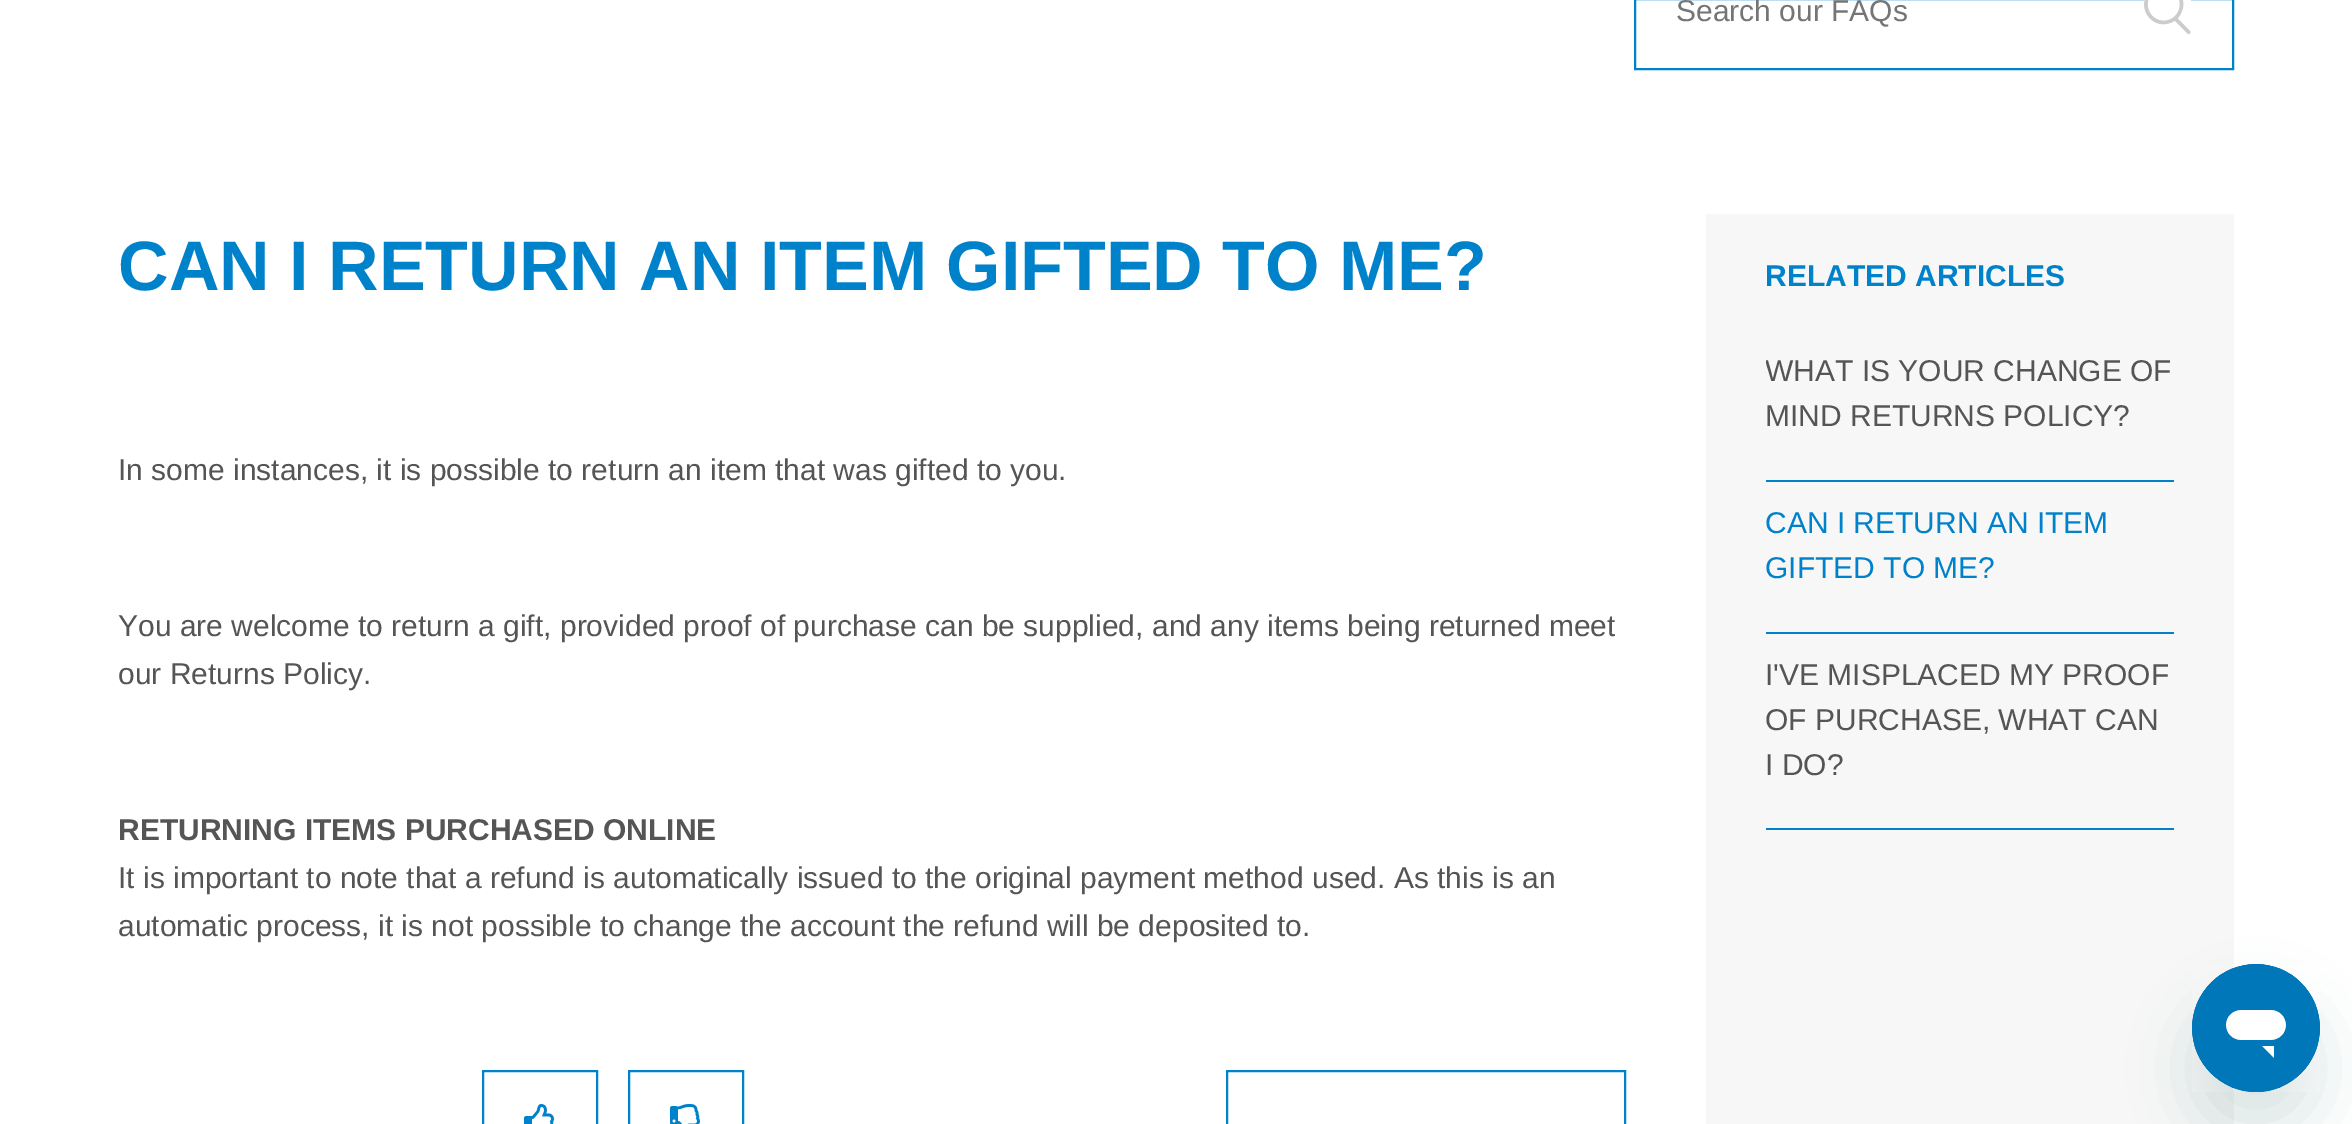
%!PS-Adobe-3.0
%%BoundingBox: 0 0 2352 1124
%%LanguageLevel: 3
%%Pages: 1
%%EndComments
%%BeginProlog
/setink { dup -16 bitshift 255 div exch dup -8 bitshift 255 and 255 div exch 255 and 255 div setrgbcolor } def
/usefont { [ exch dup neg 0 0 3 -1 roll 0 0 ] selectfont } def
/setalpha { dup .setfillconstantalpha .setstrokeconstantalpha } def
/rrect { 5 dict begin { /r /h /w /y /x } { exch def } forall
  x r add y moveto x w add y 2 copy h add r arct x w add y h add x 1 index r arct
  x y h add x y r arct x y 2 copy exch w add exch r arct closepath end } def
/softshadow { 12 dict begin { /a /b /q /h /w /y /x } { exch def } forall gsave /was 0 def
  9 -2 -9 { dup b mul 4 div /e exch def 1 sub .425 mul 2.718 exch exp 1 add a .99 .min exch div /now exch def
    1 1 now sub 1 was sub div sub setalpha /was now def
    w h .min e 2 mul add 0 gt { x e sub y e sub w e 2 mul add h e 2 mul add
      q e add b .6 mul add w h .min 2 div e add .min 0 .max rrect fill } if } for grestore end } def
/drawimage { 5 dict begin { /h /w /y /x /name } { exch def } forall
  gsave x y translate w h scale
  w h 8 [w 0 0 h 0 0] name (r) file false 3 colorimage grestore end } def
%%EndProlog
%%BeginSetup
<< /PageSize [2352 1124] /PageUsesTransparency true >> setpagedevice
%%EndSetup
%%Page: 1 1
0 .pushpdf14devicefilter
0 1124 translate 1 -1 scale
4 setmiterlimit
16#FFFFFF setink
0 0 2352 1124 rectfill
16#0082CA setink
2 setlinewidth
1635 -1 598 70 rectstroke
/LiberationSans-Regular 30 usefont
16#757575 setink
1676 21 moveto (Search our FAQs) show
(img1.raw) 2144 0 47 34 drawimage
/LiberationSans-Bold 70 usefont
16#0082CA setink
118 290 moveto (CAN I RETURN AN ITEM GIFTED TO ME?) show
/LiberationSans-Regular 30 usefont
16#555555 setink
[
    [(In some instances, it is possible to return an item that was gifted to you.) 118 480]
    [(You are welcome to return a gift, provided proof of purchase can be supplied, and any items being returned meet) 118 636]
    [(our Returns Policy.) 118 684]
] { aload pop moveto show } forall
/LiberationSans-Bold 30 usefont
118 840 moveto (RETURNING ITEMS PURCHASED ONLINE) show
/LiberationSans-Regular 30 usefont
118 888 moveto (It is important to note that a refund is automatically issued to the original payment method used. As this is an) show
118 936 moveto (automatic process, it is not possible to change the account the refund will be deposited to.) show
16#0082CA setink
483 1071 114 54 rectstroke
(img2.raw) 524 1104 30 20 drawimage
629 1071 114 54 rectstroke
(img3.raw) 670 1104 30 20 drawimage
1227 1071 398 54 rectstroke
16#F7F7F7 setink
1706 214 528 910 rectfill
/LiberationSans-Bold 30 usefont
16#0082CA setink
1765 286 moveto (RELATED ARTICLES) show
1766 480 408 2 rectfill
gsave
1766 254 408 576 rectclip
/LiberationSans-Regular 30 usefont
16#555555 setink
1765 381 moveto (WHAT IS YOUR CHANGE OF) show
grestore
/LiberationSans-Regular 30 usefont
16#555555 setink
1765 426 moveto (MIND RETURNS POLICY?) show
16#0082CA setink
1766 632 408 2 rectfill
1765 533 moveto (CAN I RETURN AN ITEM) show
1765 578 moveto (GIFTED TO ME?) show
1766 828 408 2 rectfill
16#555555 setink
[
    [(I'VE MISPLACED MY PROOF) 1765 685]
    [(OF PURCHASE, WHAT CAN) 1765 730]
    [(I DO?) 1765 775]
] { aload pop moveto show } forall
16#17494D setink
2192 1004 128 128 64 30 0.15 softshadow
(img4.raw) 2192 964 128 128 drawimage
.poppdf14devicefilter showpage
%%EOF
